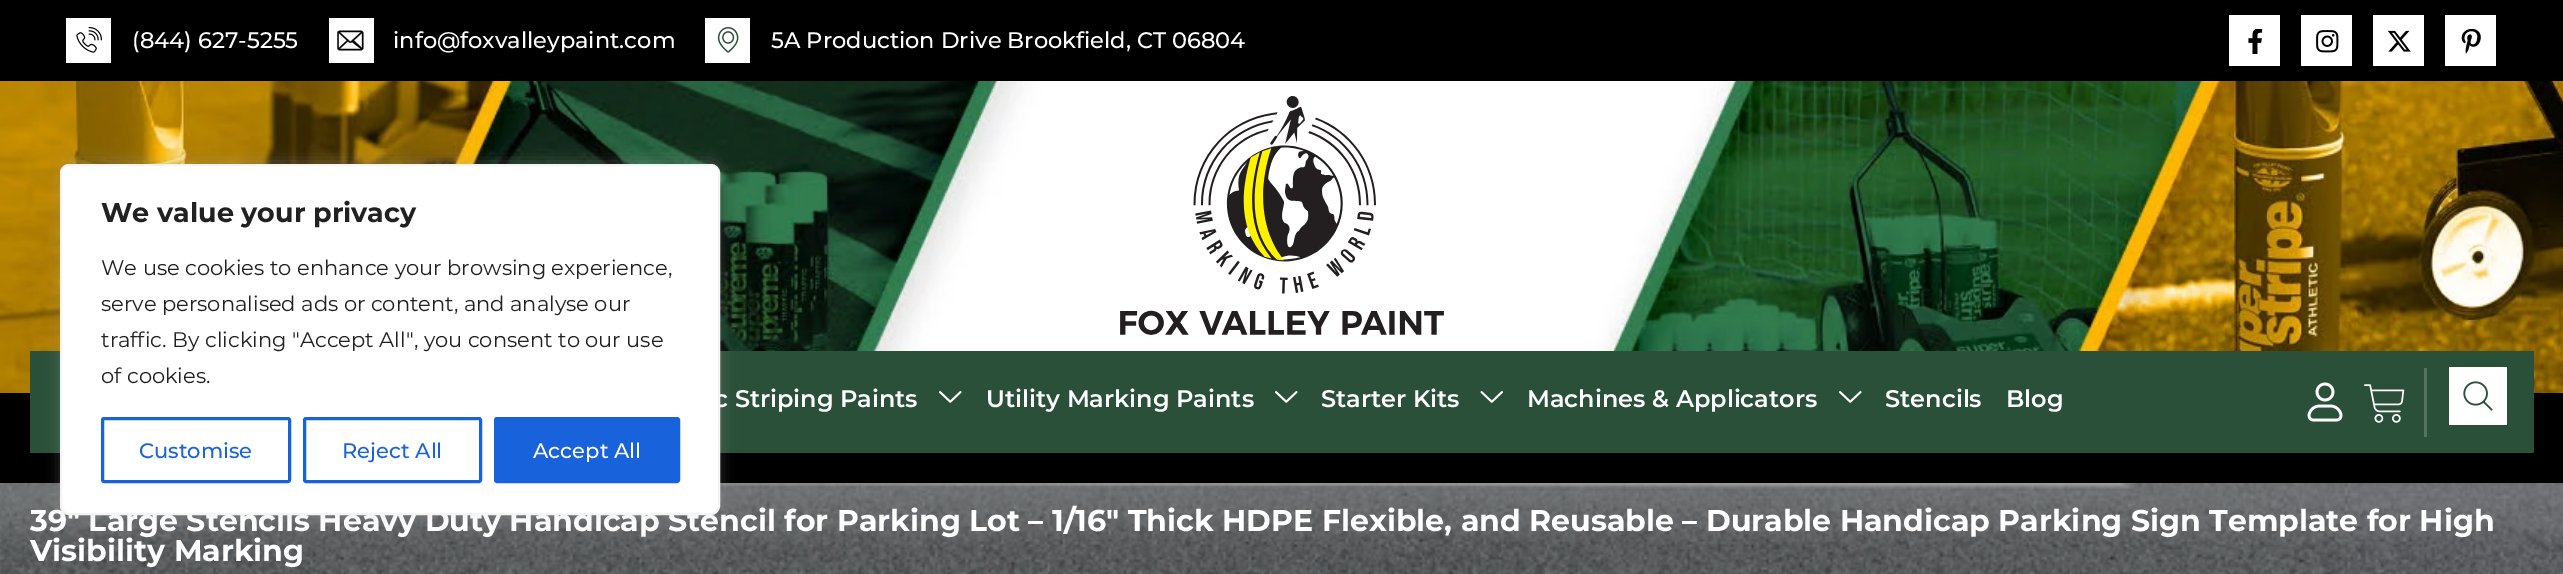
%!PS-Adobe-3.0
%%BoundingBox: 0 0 2563 574
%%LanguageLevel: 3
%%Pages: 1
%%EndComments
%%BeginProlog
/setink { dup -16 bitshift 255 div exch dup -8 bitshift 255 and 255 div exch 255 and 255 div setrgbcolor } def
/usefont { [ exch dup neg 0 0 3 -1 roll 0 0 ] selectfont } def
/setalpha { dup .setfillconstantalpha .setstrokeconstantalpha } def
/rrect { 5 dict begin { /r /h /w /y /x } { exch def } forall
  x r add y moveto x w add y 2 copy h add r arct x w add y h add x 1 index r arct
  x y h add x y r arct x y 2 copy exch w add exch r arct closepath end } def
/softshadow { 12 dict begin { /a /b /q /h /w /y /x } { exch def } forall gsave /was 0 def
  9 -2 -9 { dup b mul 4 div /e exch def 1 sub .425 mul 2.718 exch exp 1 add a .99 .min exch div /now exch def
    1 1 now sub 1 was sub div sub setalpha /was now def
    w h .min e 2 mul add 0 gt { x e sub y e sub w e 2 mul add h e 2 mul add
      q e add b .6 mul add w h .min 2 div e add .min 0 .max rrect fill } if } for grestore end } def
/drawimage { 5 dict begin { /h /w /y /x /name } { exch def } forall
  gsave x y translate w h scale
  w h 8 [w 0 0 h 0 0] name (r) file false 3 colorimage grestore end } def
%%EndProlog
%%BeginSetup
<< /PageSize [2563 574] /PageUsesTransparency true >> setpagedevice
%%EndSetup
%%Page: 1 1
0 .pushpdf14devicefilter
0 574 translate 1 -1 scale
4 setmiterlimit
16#000000 setink
0 0 2563 574 rectfill
(img1.raw) 66 18 45 45 drawimage
/Montserrat-Medium 22.5 usefont
16#FFFFFF setink
132 48 moveto (\(844\) 627-5255) show
(img2.raw) 329 18 45 45 drawimage
393 48 moveto (info@foxvalleypaint.com) show
(img3.raw) 705 18 45 45 drawimage
771 48 moveto (5A Production Drive Brookfield, CT 06804) show
2229 15 51 51 rectfill
(img4.raw) 2248 29 15 25 drawimage
2301 15 51 51 rectfill
(img5.raw) 2316 30 23 23 drawimage
2373 15 51 51 rectfill
(img6.raw) 2388 30 23 22 drawimage
2445 15 51 51 rectfill
(img7.raw) 2461 29 20 25 drawimage
(img8.raw) 0 81 2563 312 drawimage
(img9.raw) 1120 96 324 239 drawimage
16#2A5039 setink
30 351 2504 102 rectfill
/Montserrat-SemiBold 24 usefont
16#FFFFFF setink
714 407 moveto (c Striping Paints) show
(img10.raw) 939 391 23 12 drawimage
986 407 moveto (Utility Marking Paints) show
(img10.raw) 1275 391 23 12 drawimage
1321 407 moveto (Starter Kits) show
(img11.raw) 1480 391 23 12 drawimage
1527 407 moveto (Machines & Applicators) show
(img10.raw) 1839 391 23 12 drawimage
1885 407 moveto (Stencils) show
2006 407 moveto (Blog) show
(img12.raw) 2307 382 36 40 drawimage
16#557361 setink
2424 368 3 69 rectfill
(img13.raw) 2364 384 41 39 drawimage
(img14.raw) 2449 367 58 58 drawimage
(img15.raw) 0 483 2563 91 drawimage
/Montserrat-Bold 30 usefont
16#FFFFFF setink
30 531 moveto (39″ Large Stencils Heavy Duty Handicap Stencil for Parking Lot – 1/16″ Thick HDPE Flexible, and Reusable – Durable Handicap Parking Sign Template for High) show
30 561 moveto (Visibility Marking) show
16#ACABAB setink
60 162 660 351 9 7.5 0.3 softshadow
16#FFFFFF setink
61 165 658 349 8 rrect gsave fill grestore
16#F4F4F4 setink
2 setlinewidth
stroke
/Montserrat-Bold 27 usefont
16#212121 setink
101 222 moveto (We value your privacy) show
/Montserrat-Regular 21 usefont
[
    [(We use cookies to enhance your browsing experience,) 101 275]
    [(serve personalised ads or content, and analyse our) 101 311]
    [(traffic. By clicking "Accept All", you consent to our use) 101 347]
    [(of cookies.) 101 383]
] { aload pop moveto show } forall
16#1863DC setink
3 setlinewidth
102.5 418.5 187 63 1.5 rrect stroke
/Montserrat-Medium 21 usefont
139 458 moveto (Customise) show
304.5 418.5 176 63 1.5 rrect stroke
342 458 moveto (Reject All) show
495.5 418.5 183 63 1.5 rrect gsave fill grestore
stroke
16#FFFFFF setink
533 458 moveto (Accept All) show
.poppdf14devicefilter showpage
%%EOF
